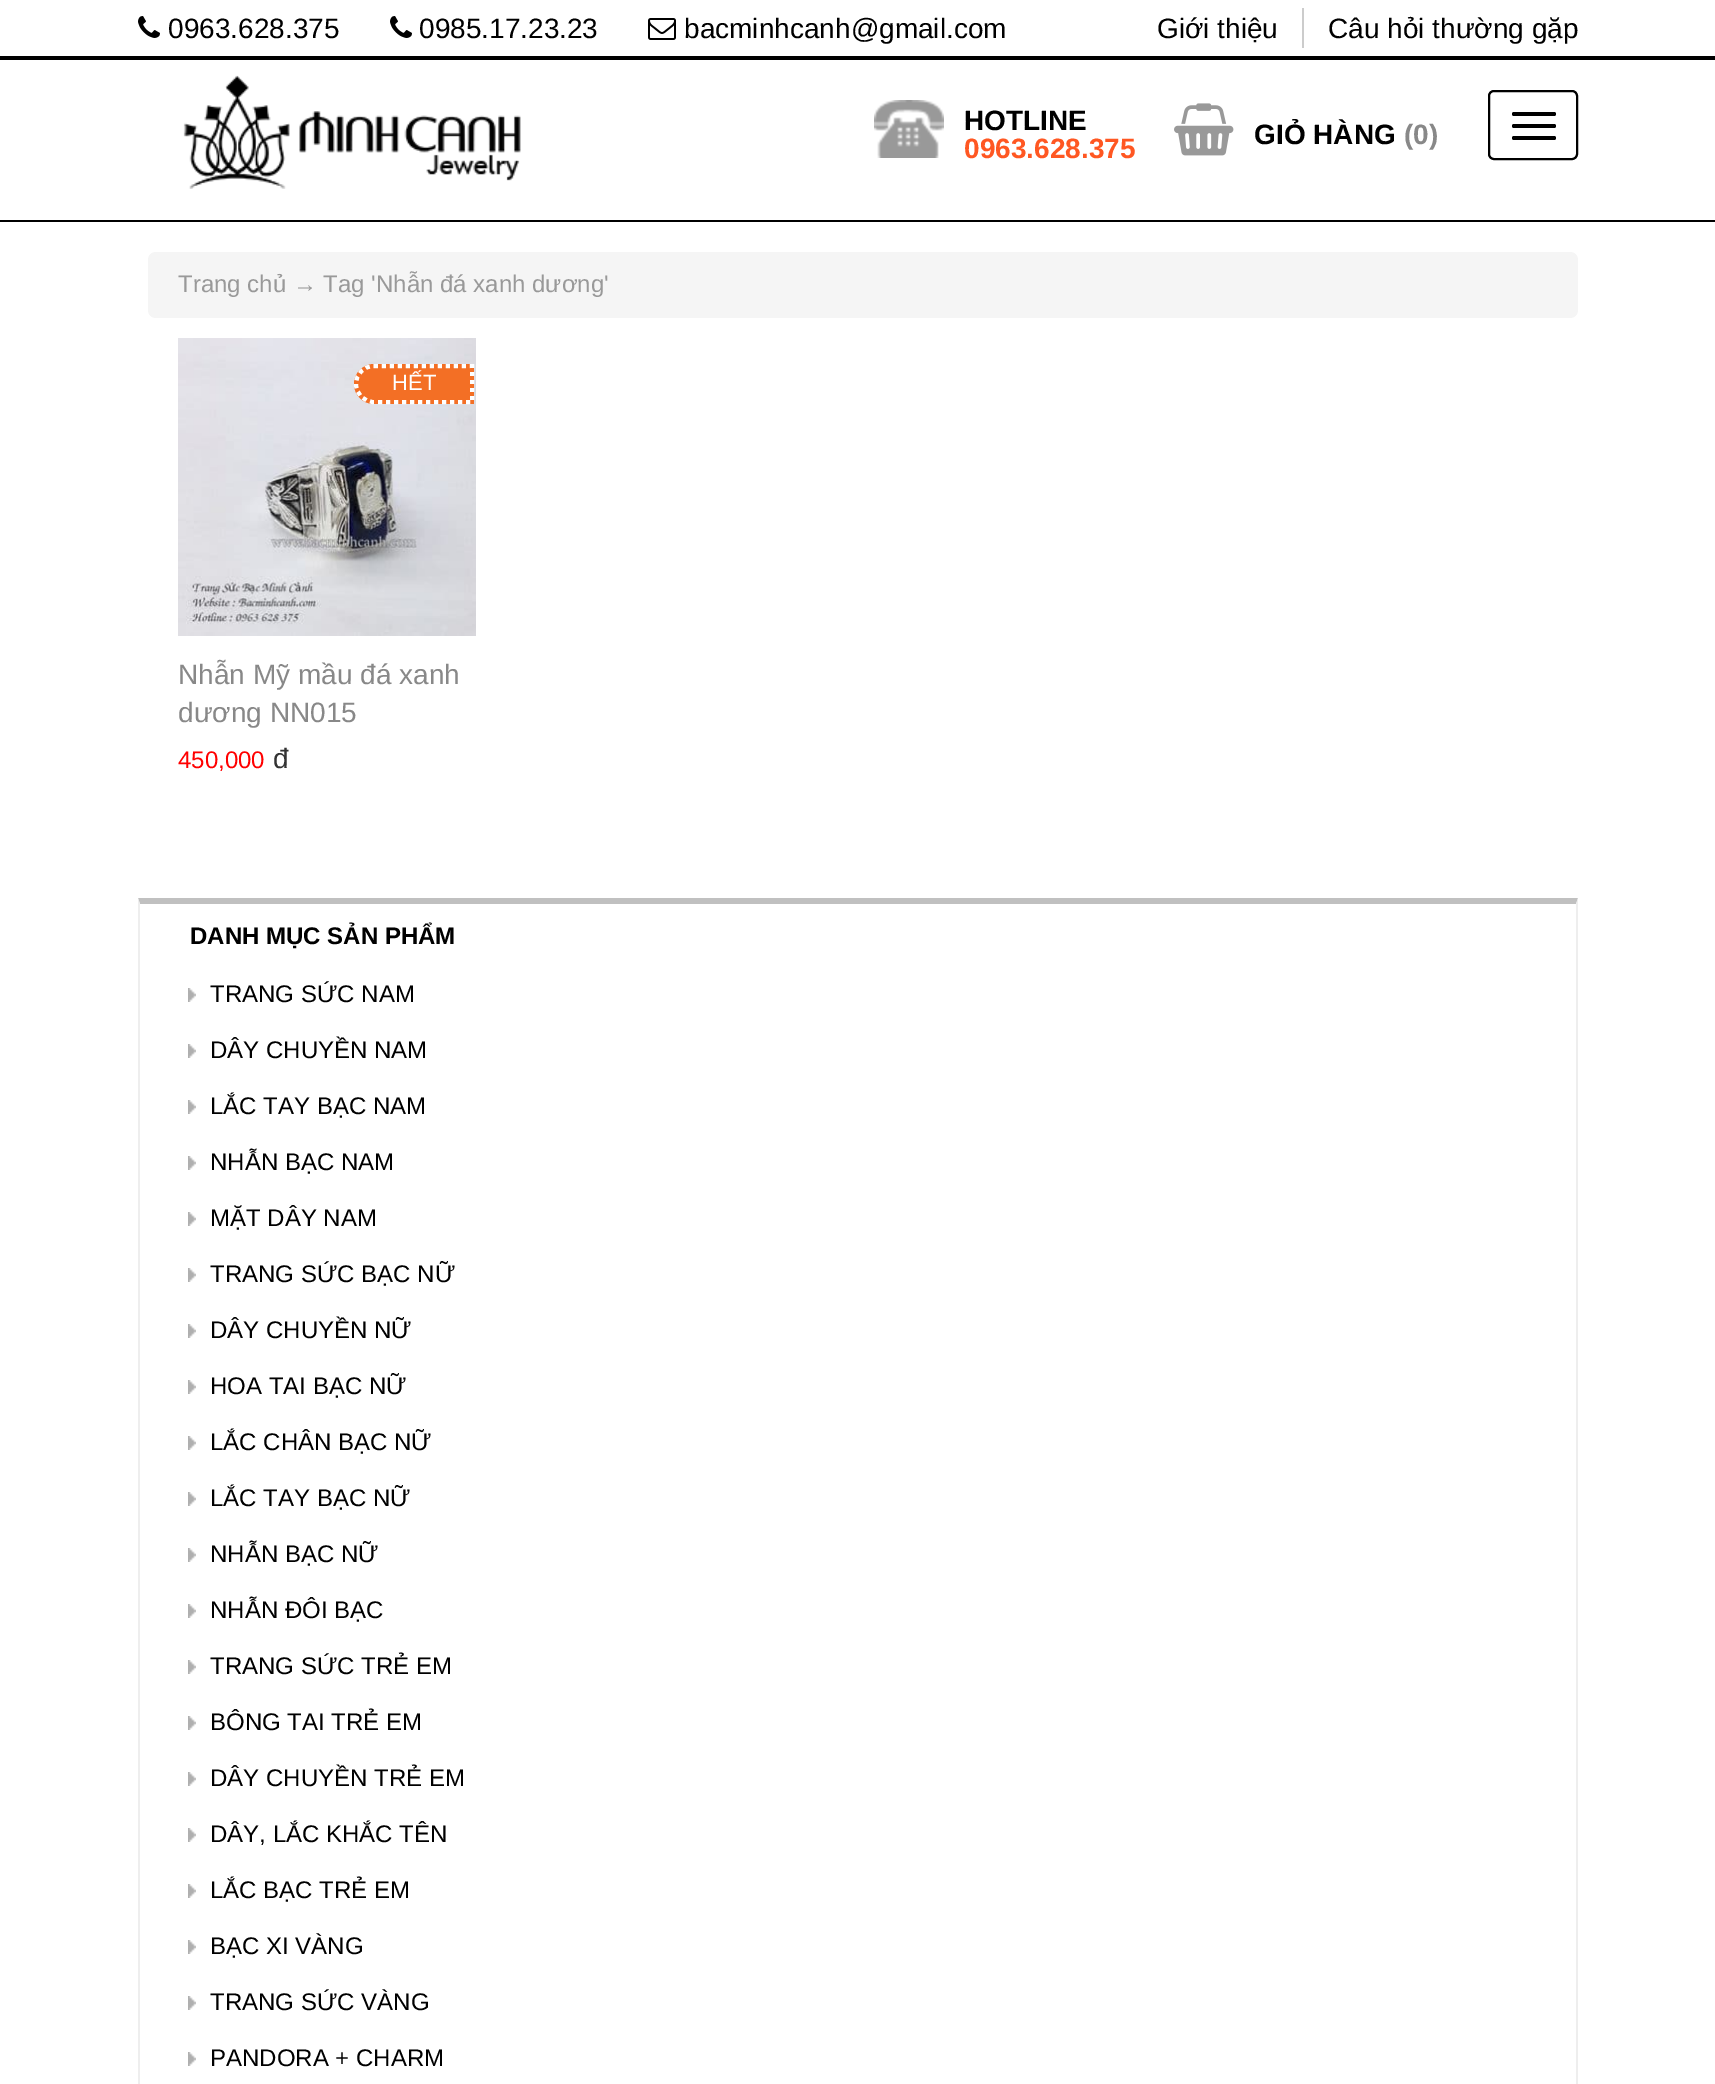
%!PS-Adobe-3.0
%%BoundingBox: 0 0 1715 2084
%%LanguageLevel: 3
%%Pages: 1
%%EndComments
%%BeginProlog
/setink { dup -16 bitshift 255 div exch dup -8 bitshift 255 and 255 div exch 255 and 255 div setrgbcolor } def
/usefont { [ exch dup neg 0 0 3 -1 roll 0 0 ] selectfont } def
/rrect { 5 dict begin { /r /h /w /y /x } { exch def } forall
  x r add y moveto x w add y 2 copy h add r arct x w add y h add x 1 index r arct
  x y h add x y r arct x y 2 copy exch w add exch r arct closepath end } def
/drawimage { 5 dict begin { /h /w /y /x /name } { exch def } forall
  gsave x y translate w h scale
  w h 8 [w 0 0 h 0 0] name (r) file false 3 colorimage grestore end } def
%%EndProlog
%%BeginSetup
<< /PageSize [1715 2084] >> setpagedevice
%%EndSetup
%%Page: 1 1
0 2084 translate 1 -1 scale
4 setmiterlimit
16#FFFFFF setink
0 0 1715 2084 rectfill
16#000000 setink
0 56 1715 4 rectfill
(img1.raw) 138 16 22 22 drawimage
/LiberationSans-Regular 28 usefont
168 38 moveto (0963.628.375) show
(img1.raw) 390 16 22 22 drawimage
419 38 moveto (0985.17.23.23) show
(img2.raw) 648 18 28 22 drawimage
684 38 moveto (bacminhcanh@gmail.com) show
1157 38 moveto (Giới thiệu) show
16#CCCCCC setink
1302 8 2 40 rectfill
16#000000 setink
1328 38 moveto (Câu hỏi thường gặp) show
(img3.raw) 183 75 338 114 drawimage
(img4.raw) 874 100 70 58 drawimage
/LiberationSans-Bold 28 usefont
964 130 moveto (HOTLINE) show
16#FF5722 setink
964 158 moveto (0963.628.375) show
(img5.raw) 1174 103 60 53 drawimage
16#000000 setink
1254 144 moveto (GIỎ HÀNG) show
16#888888 setink
1404 144 moveto (\(0\)) show
16#000000 setink
2 setlinewidth
1489 91 88 68 5 rrect stroke
1512 112 44 4 2 rrect fill
1512 124 44 4 2 rrect fill
1512 136 44 4 2 rrect fill
0 220 1715 2 rectfill
16#F5F5F5 setink
148 252 1430 66 8 rrect fill
/LiberationSans-Regular 24 usefont
16#999999 setink
178 292 moveto (Trang chủ → Tag 'Nhẫn đá xanh dương') show
(img6.raw) 178 338 298 298 drawimage
16#F36F25 setink
374 364 moveto 474 364 lineto 474 404 lineto 374 404 lineto 363 404 354 395 354 384 curveto 354 373 363 364 374 364 curveto closepath fill
16#FFFFFF setink
4 setlinewidth
[4 4] 0 setdash
374 366 moveto 472 366 lineto 472 402 lineto 374 402 lineto 364 402 356 394 356 384 curveto 356 374 364 366 374 366 curveto closepath stroke
/LiberationSans-Regular 22 usefont
392 390 moveto (HẾT) show
/LiberationSans-Regular 28 usefont
16#888888 setink
178 684 moveto (Nhẫn Mỹ mầu đá xanh) show
178 722 moveto (dương NN015) show
/LiberationSans-Regular 24 usefont
16#FF0000 setink
178 768 moveto (450,000) show
/LiberationSans-Regular 28 usefont
16#333333 setink
273 768 moveto (đ) show
16#C0C0C0 setink
138 898 moveto 1578 898 lineto 1576 904 lineto 140 904 lineto closepath fill
16#EEEEEE setink
1578 898 moveto 1578 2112 lineto 1576 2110 lineto 1576 904 lineto closepath fill
138 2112 moveto 138 898 lineto 140 904 lineto 140 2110 lineto closepath fill
/LiberationSans-Bold 24 usefont
16#000000 setink
190 944 moveto (DANH MỤC SẢN PHẨM) show
(img7.raw) 188 988 8 14 drawimage
/LiberationSans-Regular 24 usefont
210 1002 moveto (TRANG SỨC NAM) show
(img7.raw) 188 1044 8 14 drawimage
210 1058 moveto (DÂY CHUYỀN NAM) show
(img7.raw) 188 1100 8 14 drawimage
210 1114 moveto (LẮC TAY BẠC NAM) show
(img7.raw) 188 1156 8 14 drawimage
210 1170 moveto (NHẪN BẠC NAM) show
(img7.raw) 188 1212 8 14 drawimage
210 1226 moveto (MẶT DÂY NAM) show
(img7.raw) 188 1268 8 14 drawimage
210 1282 moveto (TRANG SỨC BẠC NỮ) show
(img7.raw) 188 1324 8 14 drawimage
210 1338 moveto (DÂY CHUYỀN NỮ) show
(img7.raw) 188 1380 8 14 drawimage
210 1394 moveto (HOA TAI BẠC NỮ) show
(img7.raw) 188 1436 8 14 drawimage
210 1450 moveto (LẮC CHÂN BẠC NỮ) show
(img7.raw) 188 1492 8 14 drawimage
210 1506 moveto (LẮC TAY BẠC NỮ) show
(img7.raw) 188 1548 8 14 drawimage
210 1562 moveto (NHẪN BẠC NỮ) show
(img7.raw) 188 1604 8 14 drawimage
210 1618 moveto (NHẪN ĐÔI BẠC) show
(img7.raw) 188 1660 8 14 drawimage
210 1674 moveto (TRANG SỨC TRẺ EM) show
(img7.raw) 188 1716 8 14 drawimage
210 1730 moveto (BÔNG TAI TRẺ EM) show
(img7.raw) 188 1772 8 14 drawimage
210 1786 moveto (DÂY CHUYỀN TRẺ EM) show
(img7.raw) 188 1828 8 14 drawimage
210 1842 moveto (DÂY, LẮC KHẮC TÊN) show
(img7.raw) 188 1884 8 14 drawimage
210 1898 moveto (LẮC BẠC TRẺ EM) show
(img7.raw) 188 1940 8 14 drawimage
210 1954 moveto (BẠC XI VÀNG) show
(img7.raw) 188 1996 8 14 drawimage
210 2010 moveto (TRANG SỨC VÀNG) show
(img7.raw) 188 2052 8 14 drawimage
210 2066 moveto (PANDORA + CHARM) show
showpage
%%EOF
